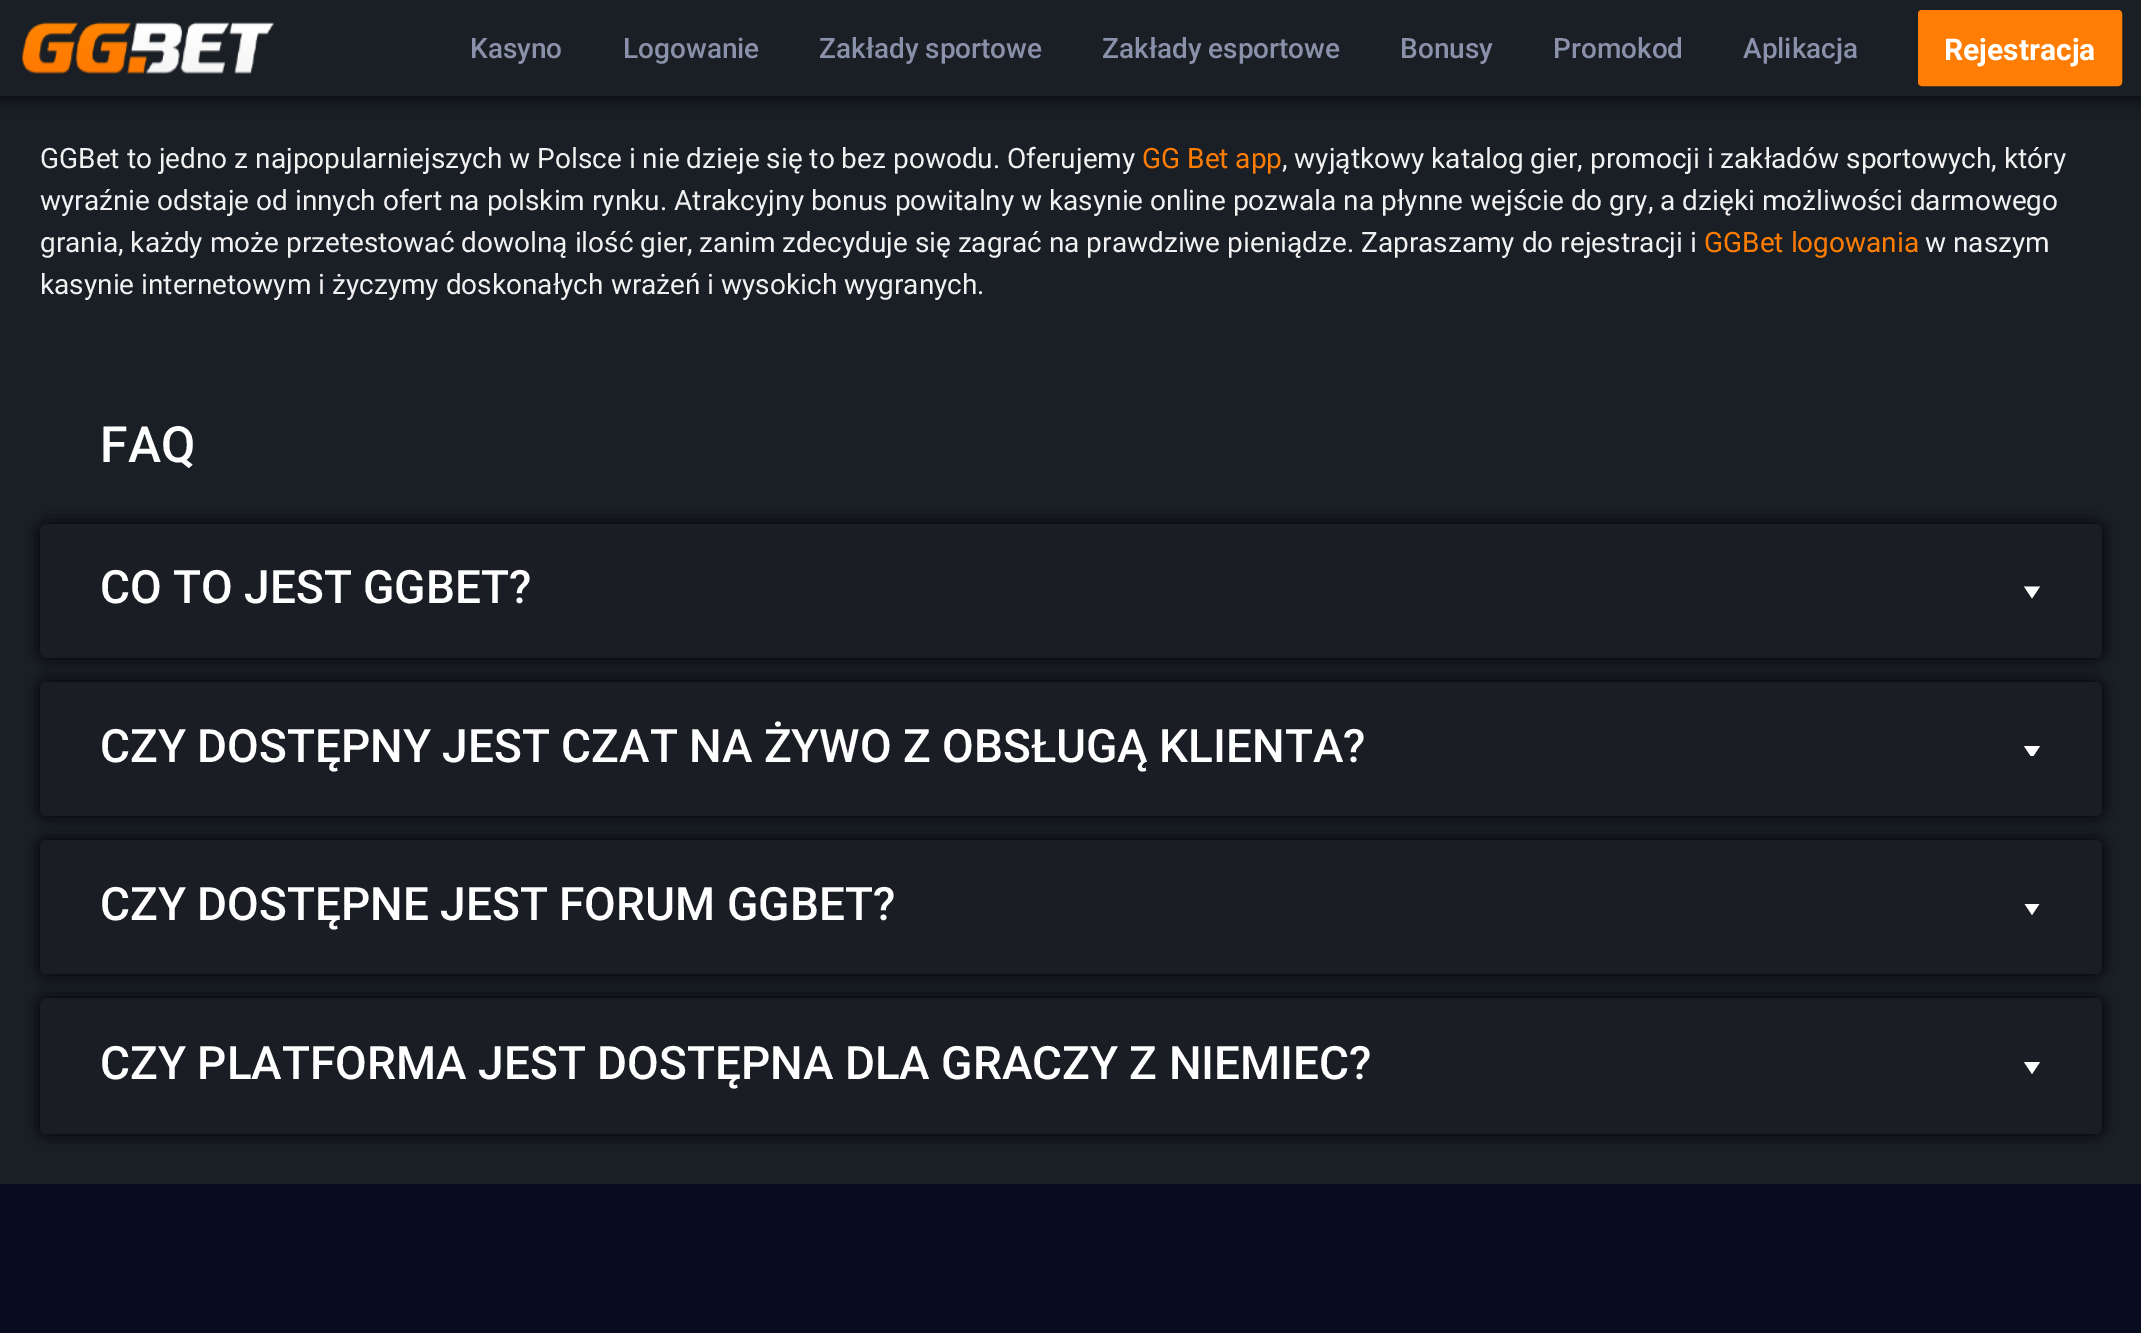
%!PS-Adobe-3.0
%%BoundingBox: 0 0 2141 1333
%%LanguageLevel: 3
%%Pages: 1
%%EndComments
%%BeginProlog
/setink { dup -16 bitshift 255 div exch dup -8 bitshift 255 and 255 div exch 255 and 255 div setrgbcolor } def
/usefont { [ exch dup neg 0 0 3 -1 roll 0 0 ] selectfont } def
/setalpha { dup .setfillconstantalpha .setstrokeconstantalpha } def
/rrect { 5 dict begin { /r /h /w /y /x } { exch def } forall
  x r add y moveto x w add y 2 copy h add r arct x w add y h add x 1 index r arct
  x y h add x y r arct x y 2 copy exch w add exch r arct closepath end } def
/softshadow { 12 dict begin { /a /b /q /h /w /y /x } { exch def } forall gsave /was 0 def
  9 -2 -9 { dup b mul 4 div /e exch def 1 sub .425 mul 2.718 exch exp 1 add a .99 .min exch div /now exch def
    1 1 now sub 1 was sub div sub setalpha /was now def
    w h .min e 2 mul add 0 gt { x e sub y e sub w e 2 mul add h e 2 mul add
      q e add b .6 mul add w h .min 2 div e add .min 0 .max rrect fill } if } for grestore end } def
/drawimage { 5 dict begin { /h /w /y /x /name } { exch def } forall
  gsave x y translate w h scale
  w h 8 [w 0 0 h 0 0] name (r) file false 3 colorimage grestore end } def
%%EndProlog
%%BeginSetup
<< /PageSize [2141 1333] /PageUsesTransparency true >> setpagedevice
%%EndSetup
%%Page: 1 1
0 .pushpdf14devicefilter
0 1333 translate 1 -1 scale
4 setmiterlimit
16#1A1F25 setink
0 0 2141 1333 rectfill
16#000000 setink
0 4 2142 96 0 7 0.6 softshadow
16#1A1F25 setink
0 0 2141 96 rectfill
(img1.raw) 22 22 252 52 drawimage
/Roboto-Medium 28 usefont
16#8A92AB setink
[
    [(Kasyno) 470 58]
    [(Logowanie) 623 58]
    [(Zakłady sportowe) 819 58]
    [(Zakłady esportowe) 1102 58]
    [(Bonusy) 1400 58]
    [(Promokod) 1553 58]
    [(Aplikacja) 1743 58]
] { aload pop moveto show } forall
16#FF7D03 setink
1921 13 198 70 1 rrect gsave fill grestore
6 setlinewidth
stroke
/Roboto-Bold 30 usefont
16#FFFFFF setink
1944 60 moveto (Rejestracja) show
/Roboto-Regular 28 usefont
16#F1F1F1 setink
40 168 moveto (GGBet to jedno z najpopularniejszych w Polsce i nie dzieje się to bez powodu. Oferujemy) show
16#FF7D03 setink
1142 168 moveto (GG Bet app) show
16#F1F1F1 setink
[
    [(, wyjątkowy katalog gier, promocji i zakładów sportowych, który) 1282 168]
    [(wyraźnie odstaje od innych ofert na polskim rynku. Atrakcyjny bonus powitalny w kasynie online pozwala na płynne wejście do gry, a dzięki możliwości darmowego) 40 210]
    [(grania, każdy może przetestować dowolną ilość gier, zanim zdecyduje się zagrać na prawdziwe pieniądze. Zapraszamy do rejestracji i) 40 252]
] { aload pop moveto show } forall
16#FF7D03 setink
1704 252 moveto (GGBet logowania) show
16#F1F1F1 setink
1925 252 moveto (w naszym) show
40 294 moveto (kasynie internetowym i życzymy doskonałych wrażeń i wysokich wygranych.) show
/Roboto-Medium 50 usefont
16#FFFFFF setink
100 462 moveto (FAQ) show
16#000000 setink
40 524 2062 134 8 8 1 softshadow
16#1A1D24 setink
40 524 2062 134 8 rrect fill
/Roboto-Medium 46 usefont
16#FFFFFF setink
100 603 moveto (CO TO JEST GGBET?) show
2024 586.5 moveto 2032 598.5 lineto 2040 586.5 lineto closepath fill
16#000000 setink
40 682 2062 134 8 8 1 softshadow
16#1A1D24 setink
40 682 2062 134 8 rrect fill
16#FFFFFF setink
100 762 moveto (CZY DOSTĘPNY JEST CZAT NA ŻYWO Z OBSŁUGĄ KLIENTA?) show
gsave
2024 744 16 12 rectclip
2024 746 moveto 2032 758 lineto 2040 746 lineto closepath fill
grestore
16#000000 setink
40 840 2062 134 8 8 1 softshadow
16#1A1D24 setink
40 840 2062 134 8 rrect fill
16#FFFFFF setink
100 920 moveto (CZY DOSTĘPNE JEST FORUM GGBET?) show
gsave
2024 904 16 12 rectclip
2024 903 moveto 2032 915 lineto 2040 903 lineto closepath fill
grestore
16#000000 setink
40 998 2062 136 8 8 1 softshadow
16#1A1D24 setink
40 998 2062 136 8 rrect fill
16#FFFFFF setink
100 1079 moveto (CZY PLATFORMA JEST DOSTĘPNA DLA GRACZY Z NIEMIEC?) show
2024 1062 moveto 2032 1074 lineto 2040 1062 lineto closepath fill
16#070C1F setink
0 1184 2141 149 rectfill
.poppdf14devicefilter showpage
%%EOF
